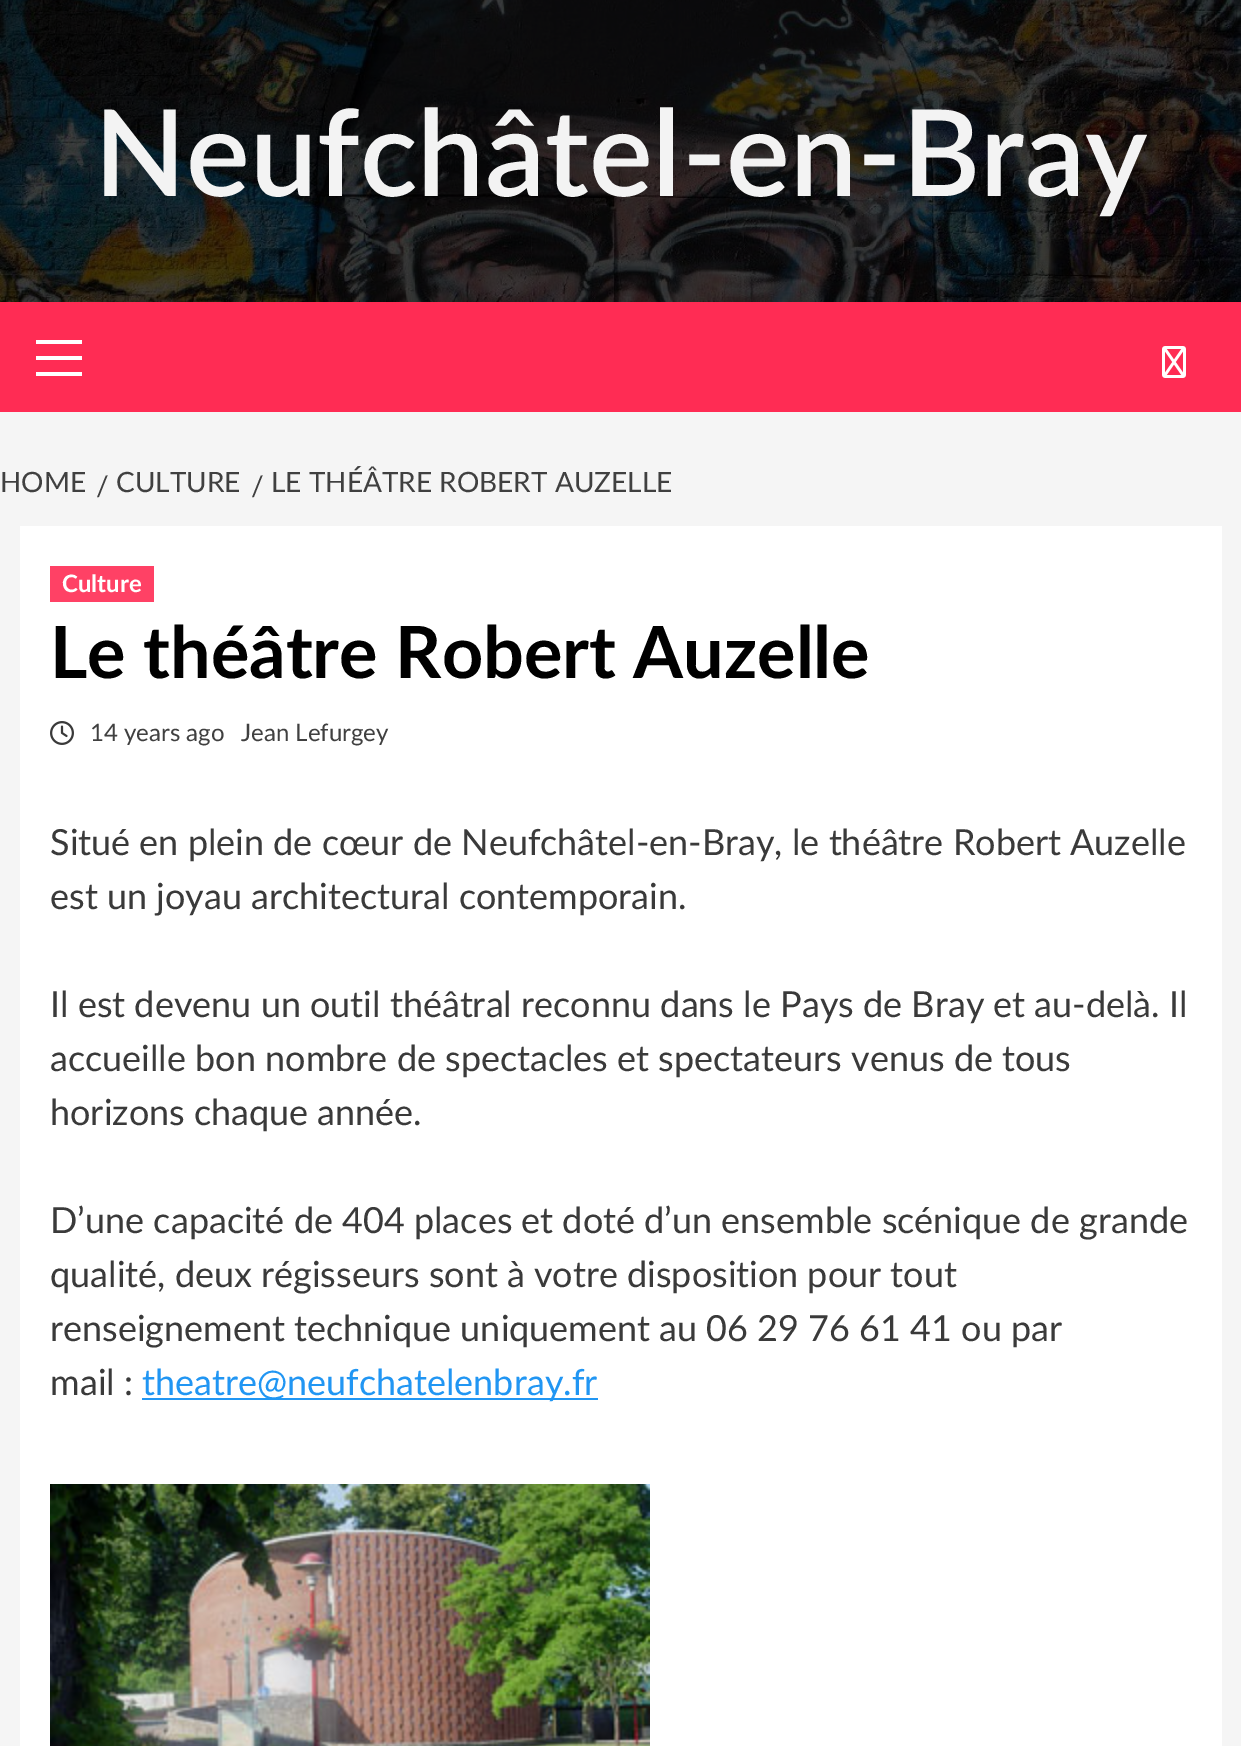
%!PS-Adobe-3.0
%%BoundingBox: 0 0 1241 1746
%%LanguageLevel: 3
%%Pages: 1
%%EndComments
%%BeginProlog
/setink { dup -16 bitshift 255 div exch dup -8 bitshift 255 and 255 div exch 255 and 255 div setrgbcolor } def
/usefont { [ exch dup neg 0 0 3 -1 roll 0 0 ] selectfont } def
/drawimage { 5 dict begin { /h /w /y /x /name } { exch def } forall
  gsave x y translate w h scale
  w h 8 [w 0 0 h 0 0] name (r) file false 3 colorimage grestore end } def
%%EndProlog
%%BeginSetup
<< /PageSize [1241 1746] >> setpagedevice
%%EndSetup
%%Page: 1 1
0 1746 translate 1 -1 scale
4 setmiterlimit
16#F5F5F5 setink
0 0 1241 1746 rectfill
(img1.raw) 0 0 1241 302 drawimage
/Lato-SemiBold 120 usefont
16#F3F3F3 setink
94 196 moveto (Neufchâtel-en-Bray) show
[
    [0 302 1241 110 16#FF2C54]
    [36 356 46 4 16#FFFFFF]
    [36 340 46 4 16#FFFFFF]
    [36 372 46 4 16#FFFFFF]
] { aload pop setink rectfill } forall
(img2.raw) 1162 346 24 32 drawimage
/Lato-Regular 28 usefont
16#404040 setink
[
    [(HOME) 0 492]
    [(/) 96 496]
    [(CULTURE) 116 492]
    [(/) 251 496]
    [(LE THÉÂTRE ROBERT AUZELLE) 271 492]
] { aload pop moveto show } forall
16#FFFFFF setink
20 526 1202 1220 rectfill
16#FF4165 setink
50 566 104 36 rectfill
/Lato-Bold 24 usefont
16#FFFFFF setink
62 592 moveto (Culture) show
/Lato-Bold 72 usefont
16#000000 setink
50 678 moveto (Le théâtre Robert Auzelle) show
(img3.raw) 50 721 24 24 drawimage
/Lato-Regular 24 usefont
16#404040 setink
90 741 moveto (14 years ago) show
241 741 moveto (Jean Lefurgey) show
/Lato-Regular 36 usefont
16#3A3A3A setink
[
    [(Situé en plein de cœur de Neufchâtel-en-Bray, le théâtre Robert Auzelle) 50 855]
    [(est un joyau architectural contemporain.) 50 909]
    [(Il est devenu un outil théâtral reconnu dans le Pays de Bray et au-delà. Il) 50 1017]
    [(accueille bon nombre de spectacles et spectateurs venus de tous) 50 1071]
    [(horizons chaque année.) 50 1125]
    [(D’une capacité de 404 places et doté d’un ensemble scénique de grande) 50 1233]
    [(qualité, deux régisseurs sont à votre disposition pour tout) 50 1287]
    [(renseignement technique uniquement au 06 29 76 61 41 ou par) 50 1341]
    [(mail :) 50 1395]
] { aload pop moveto show } forall
16#2196F3 setink
142 1398 456 2 rectfill
142 1395 moveto (theatre@neufchatelenbray.fr) show
(img4.raw) 50 1484 600 262 drawimage
showpage
%%EOF
